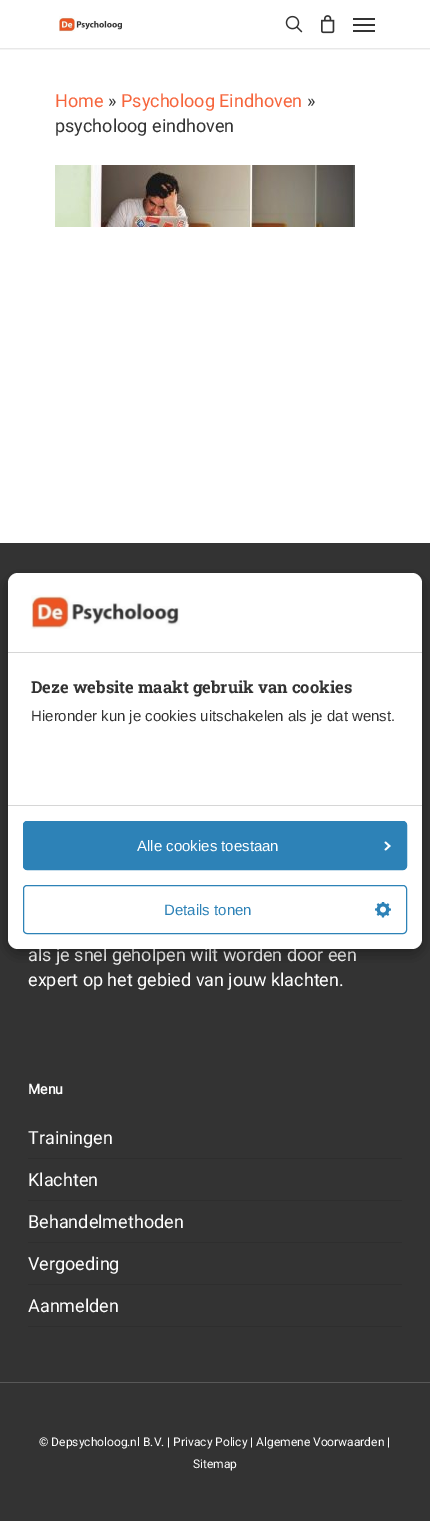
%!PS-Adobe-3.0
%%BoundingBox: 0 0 430 1521
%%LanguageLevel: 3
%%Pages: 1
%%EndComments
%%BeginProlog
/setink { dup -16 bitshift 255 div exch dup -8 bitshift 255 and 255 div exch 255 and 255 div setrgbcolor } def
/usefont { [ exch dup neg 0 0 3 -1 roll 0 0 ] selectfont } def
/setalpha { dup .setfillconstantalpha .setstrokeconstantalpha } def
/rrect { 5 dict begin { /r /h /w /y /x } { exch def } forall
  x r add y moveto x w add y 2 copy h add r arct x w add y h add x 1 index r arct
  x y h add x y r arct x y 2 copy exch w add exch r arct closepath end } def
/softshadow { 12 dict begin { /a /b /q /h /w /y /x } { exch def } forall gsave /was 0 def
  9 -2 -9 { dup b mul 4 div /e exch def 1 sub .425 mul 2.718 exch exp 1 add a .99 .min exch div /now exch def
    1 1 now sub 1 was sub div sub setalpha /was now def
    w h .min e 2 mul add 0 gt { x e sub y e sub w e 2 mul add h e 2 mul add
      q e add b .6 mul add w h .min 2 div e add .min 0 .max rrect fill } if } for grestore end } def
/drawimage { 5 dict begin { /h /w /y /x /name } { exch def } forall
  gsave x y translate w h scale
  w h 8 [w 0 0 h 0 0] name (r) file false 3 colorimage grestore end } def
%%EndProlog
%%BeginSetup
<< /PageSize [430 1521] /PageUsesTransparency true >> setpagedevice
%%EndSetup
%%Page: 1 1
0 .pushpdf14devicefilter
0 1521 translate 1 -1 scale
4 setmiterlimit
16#FFFFFF setink
0 0 430 1521 rectfill
gsave
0 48 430 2 rectclip
16#000000 setink
0 0 430 48 0 1.5 0.22 softshadow
grestore
(img1.raw) 59 16 63 16 drawimage
(img2.raw) 285 15 18 18 drawimage
(img3.raw) 321 15 14 19 drawimage
[
    [353 18 22 2 16#333333]
    [353 30 22 2 16#333333]
    [353 24 22 2 16#333333]
] { aload pop setink rectfill } forall
/Roboto-Regular 18 usefont
16#F6653C setink
55 107 moveto (Home) show
16#333333 setink
108 107 moveto (») show
16#F6653C setink
121 107 moveto (Psycholoog Eindhoven) show
16#333333 setink
307 107 moveto (») show
55 132 moveto (psycholoog eindhoven) show
(img4.raw) 55 165 300 62 drawimage
0 543 430 978 rectfill
16#FFFFFF setink
28 961 moveto (als je snel geholpen wilt worden door een) show
28 986 moveto (expert op het gebied van jouw klachten.) show
/Roboto-Bold 14 usefont
28 1094 moveto (Menu) show
16#2E2E2E setink
28 1158 374 1 rectfill
/Roboto-Regular 18 usefont
16#FFFFFF setink
28 1144 moveto (Trainingen) show
16#2E2E2E setink
28 1200 374 1 rectfill
16#FFFFFF setink
28 1186 moveto (Klachten) show
16#2E2E2E setink
28 1242 374 1 rectfill
16#FFFFFF setink
28 1228 moveto (Behandelmethoden) show
16#2E2E2E setink
28 1284 374 1 rectfill
16#FFFFFF setink
28 1270 moveto (Vergoeding) show
16#2E2E2E setink
28 1326 374 1 rectfill
16#FFFFFF setink
28 1312 moveto (Aanmelden) show
16#585858 setink
0 1382 430 1 rectfill
/Roboto-Regular 12 usefont
16#FFFFFF setink
39 1446 moveto (© Depsycholoog.nl B.V. | Privacy Policy | Algemene Voorwaarden |) show
193 1468 moveto (Sitemap) show
16#000000 setink
8 578 414 376 10 7.5 0.19 softshadow
8 578 414 376 10 7.5 0.2 softshadow
16#FFFFFF setink
18 573 moveto 412 573 lineto 417.5 573 422 577.5 422 583 curveto 422 653 lineto 8 653 lineto 8 583 lineto 8 577.5 12.5 573 18 573 curveto closepath fill
16#D6D6D6 setink
8 652 414 1 rectfill
(img5.raw) 31 595 149 34 drawimage
16#FFFFFF setink
8 653 414 152 rectfill
/RobotoSlab-Bold 16.5 usefont
16#333333 setink
31 693 moveto (Deze website maakt gebruik van cookies) show
/LiberationSans-Regular 15 usefont
31 721 moveto (Hieronder kun je cookies uitschakelen als je dat wenst.) show
16#FFFFFF setink
8 805 moveto 422 805 lineto 422 939 lineto 422 944.5 417.5 949 412 949 curveto 18 949 lineto 12.5 949 8 944.5 8 939 curveto closepath fill
16#D6D6D6 setink
8 805 414 1 rectfill
16#2D82B7 setink
23.5 821.5 383 48 3.5 rrect gsave fill grestore
stroke
16#FFFFFF setink
137 851 moveto (Alle cookies toestaan) show
(img6.raw) 384 841 7 10 drawimage
16#2D82B7 setink
23.5 885.5 383 48 3.5 rrect stroke
164 915 moveto (Details tonen) show
(img7.raw) 375 902 16 16 drawimage
.poppdf14devicefilter showpage
%%EOF
